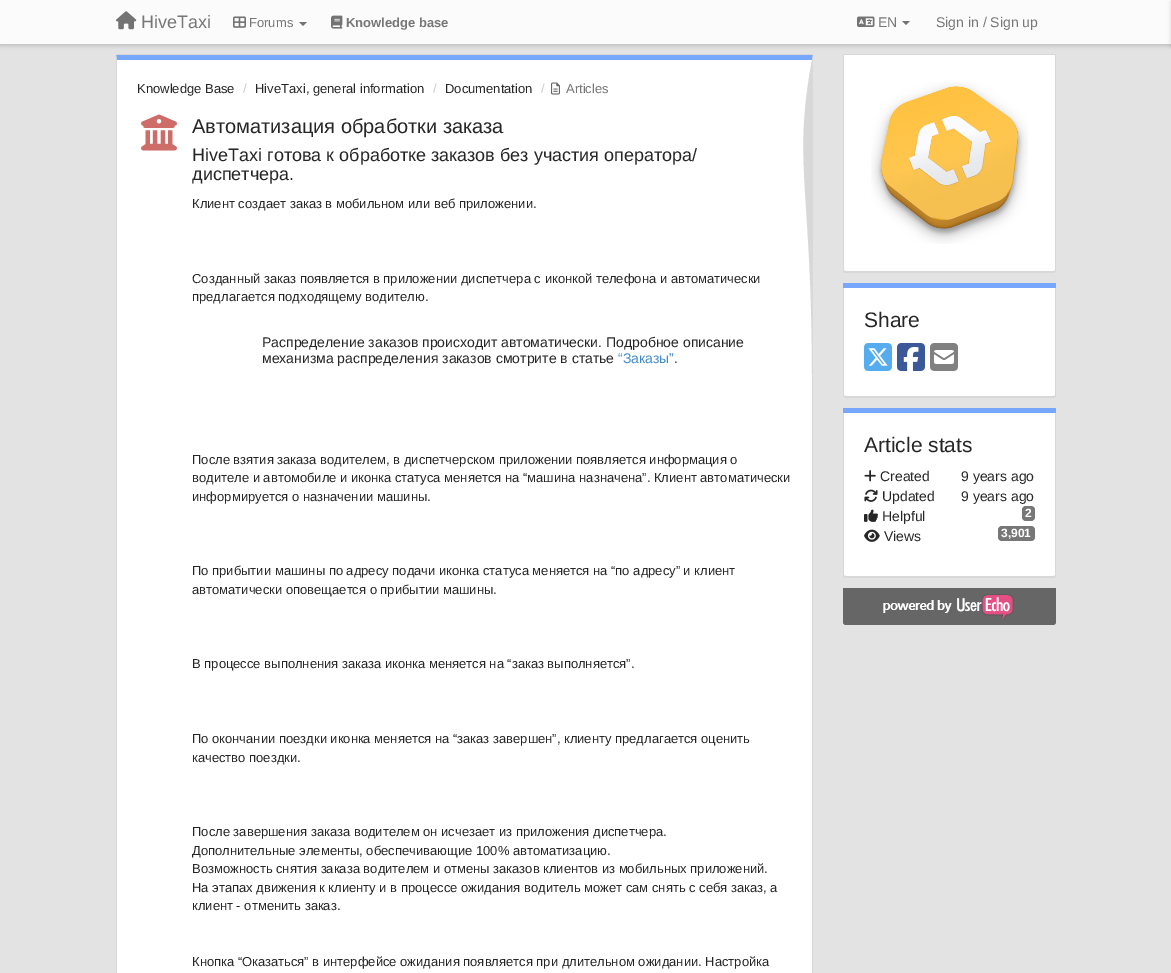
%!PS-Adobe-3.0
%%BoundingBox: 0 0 1171 973
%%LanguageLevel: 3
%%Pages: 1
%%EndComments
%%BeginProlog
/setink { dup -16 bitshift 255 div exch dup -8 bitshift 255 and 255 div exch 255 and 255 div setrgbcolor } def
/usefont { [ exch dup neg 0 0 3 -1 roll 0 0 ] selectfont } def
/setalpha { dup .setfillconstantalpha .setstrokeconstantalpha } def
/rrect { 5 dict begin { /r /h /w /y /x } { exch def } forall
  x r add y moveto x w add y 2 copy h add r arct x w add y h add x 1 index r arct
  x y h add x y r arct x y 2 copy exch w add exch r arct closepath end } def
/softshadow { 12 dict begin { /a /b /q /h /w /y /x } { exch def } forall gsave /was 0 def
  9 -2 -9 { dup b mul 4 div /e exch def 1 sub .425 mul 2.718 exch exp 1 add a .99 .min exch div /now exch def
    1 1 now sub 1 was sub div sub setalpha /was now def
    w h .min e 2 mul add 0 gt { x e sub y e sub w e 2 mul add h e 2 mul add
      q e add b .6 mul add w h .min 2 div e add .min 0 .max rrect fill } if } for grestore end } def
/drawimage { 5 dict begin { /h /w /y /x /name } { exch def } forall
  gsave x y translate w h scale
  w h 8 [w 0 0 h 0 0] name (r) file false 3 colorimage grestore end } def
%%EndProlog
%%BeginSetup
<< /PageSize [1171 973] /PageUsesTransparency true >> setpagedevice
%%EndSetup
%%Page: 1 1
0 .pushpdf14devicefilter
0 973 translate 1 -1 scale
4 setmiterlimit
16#E3E3E3 setink
0 0 1171 973 rectfill
16#000000 setink
0 2 1171 44 0 2 0.15 softshadow
16#FBFBFB setink
0 0 1171 44 rectfill
(img1.raw) 116 11 21 19 drawimage
/LiberationSans-Regular 18 usefont
16#777777 setink
141 28 moveto (HiveTaxi) show
(img2.raw) 233 16 13 12 drawimage
/LiberationSans-Regular 13 usefont
249 27 moveto (Forums) show
16#737373 setink
299 22 moveto 307 22 lineto 303 26 lineto closepath fill
(img3.raw) 331 15 12 14 drawimage
/LiberationSans-Bold 13 usefont
16#777777 setink
346 27 moveto (Knowledge base) show
(img4.raw) 857 16 18 11 drawimage
/LiberationSans-Regular 14 usefont
878 27 moveto (EN) show
16#737373 setink
902 21 moveto 910 21 lineto 906 25 lineto closepath fill
16#777777 setink
936 27 moveto (Sign in / Sign up) show
16#000000 setink
1171 2 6 44 0 2 0.15 softshadow
16#D8D8D8 setink
116 54 697 1 rectfill
16#FFFFFF setink
117 60 moveto 812 60 lineto 812 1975 lineto 812 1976 811 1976 810 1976 curveto 119 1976 lineto 118 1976 117 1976 117 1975 curveto closepath fill
16#76A7FA setink
116 55 moveto 117 60 lineto 812 60 lineto 813 55 lineto closepath fill
16#D8D8D8 setink
813 55 moveto 792 162 812 186 812 379 curveto 812 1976 lineto 812 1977 lineto 813 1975 lineto closepath fill
117 60 moveto 116 55 lineto 116 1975 lineto 117 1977 lineto 117 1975 lineto closepath fill
/LiberationSans-Regular 13 usefont
16#262626 setink
137 93 moveto (Knowledge Base) show
16#CCCCCC setink
243 93 moveto (/) show
16#262626 setink
255 93 moveto (HiveTaxi, general information) show
16#CCCCCC setink
433 93 moveto (/) show
16#262626 setink
445 93 moveto (Documentation) show
16#CCCCCC setink
541 93 moveto (/) show
(img5.raw) 551 82 9 13 drawimage
16#777777 setink
566 93 moveto (Articles) show
(img6.raw) 141 114 36 37 drawimage
/LiberationSans-Regular 20 usefont
16#262626 setink
192 133 moveto (Автоматизация обработки заказа) show
/LiberationSans-Regular 18 usefont
192 161 moveto (HiveTaxi готова к обработке заказов без участия оператора/) show
gsave
192 146 600 827 rectclip
192 180 moveto (диспетчера.) show
grestore
/LiberationSans-Regular 13 usefont
[
    [(Клиент создает заказ в мобильном или веб приложении.) 192 208]
    [(Созданный заказ появляется в приложении диспетчера с иконкой телефона и автоматически) 192 283]
    [(предлагается подходящему водителю.) 192 301]
] { aload pop moveto show } forall
/LiberationSans-Regular 14 usefont
262 347 moveto (Распределение заказов происходит автоматически. Подробное описание) show
262 363 moveto (механизма распределения заказов смотрите в статье) show
16#428BCA setink
618 363 moveto (“Заказы”) show
16#262626 setink
674 363 moveto (.) show
/LiberationSans-Regular 13 usefont
[
    [(После взятия заказа водителем, в диспетчерском приложении появляется информация о) 192 464]
    [(водителе и автомобиле и иконка статуса меняется на “машина назначена”. Клиент автоматически) 192 482]
    [(информируется о назначении машины.) 192 501]
    [(По прибытии машины по адресу подачи иконка статуса меняется на “по адресу” и клиент) 192 575]
    [(автоматически оповещается о прибытии машины.) 192 594]
    [(В процессе выполнения заказа иконка меняется на “заказ выполняется”.) 192 668]
    [(По окончании поездки иконка меняется на “заказ завершен”, клиенту предлагается оценить) 192 743]
    [(качество поездки.) 192 762]
    [(После завершения заказа водителем он исчезает из приложения диспетчера.) 192 836]
] { aload pop moveto show } forall
gsave
192 146 600 827 rectclip
192 855 moveto (Дополнительные элементы, обеспечивающие 100% автоматизацию.) show
grestore
[
    [(Возможность снятия заказа водителем и отмены заказов клиентов из мобильных приложений.) 192 873]
    [(На этапах движения к клиенту и в процессе ожидания водитель может сам снять с себя заказ, а) 192 892]
    [(клиент - отменить заказ.) 192 910]
    [(Кнопка “Оказаться” в интерфейсе ожидания появляется при длительном ожидании. Настройка) 192 966]
] { aload pop moveto show } forall
16#D8D8D8 setink
843 54 213 1 rectfill
16#FFFFFF setink
844 55 moveto 1055 55 lineto 1055 270 lineto 1055 271 1054 271 1053 271 curveto 846 271 lineto 845 271 844 271 844 270 curveto closepath fill
16#D8D8D8 setink
843 55 moveto 1056 55 lineto 1056 270 lineto 1056 272 1055 273 1053 273 curveto 846 273 lineto 844 273 843 272 843 270 curveto closepath 844 55 moveto 1055 55 lineto 1055 270 lineto 1055 271 1054 271 1053 271 curveto 846 271 lineto 845 271 844 271 844 270 curveto closepath eofill
(img7.raw) 871 82 157 162 drawimage
16#76A7FA setink
843 283 213 5 rectfill
16#FFFFFF setink
844 288 moveto 1055 288 lineto 1055 395 lineto 1055 396 1054 396 1053 396 curveto 846 396 lineto 845 396 844 396 844 395 curveto closepath fill
16#D8D8D8 setink
843 288 moveto 1056 288 lineto 1056 395 lineto 1056 397 1055 398 1053 398 curveto 846 398 lineto 844 398 843 397 843 395 curveto closepath 844 288 moveto 1055 288 lineto 1055 395 lineto 1055 396 1054 396 1053 396 curveto 846 396 lineto 845 396 844 396 844 395 curveto closepath eofill
/LiberationSans-Regular 21 usefont
16#262626 setink
864 327 moveto (Share) show
(img8.raw) 864 343 28 28 drawimage
(img9.raw) 897 343 28 28 drawimage
(img10.raw) 930 343 28 28 drawimage
16#76A7FA setink
843 408 213 5 rectfill
16#FFFFFF setink
844 413 moveto 1055 413 lineto 1055 575 lineto 1055 576 1054 576 1053 576 curveto 846 576 lineto 845 576 844 576 844 575 curveto closepath fill
16#D8D8D8 setink
843 413 moveto 1056 413 lineto 1056 575 lineto 1056 577 1055 578 1053 578 curveto 846 578 lineto 844 578 843 577 843 575 curveto closepath 844 413 moveto 1055 413 lineto 1055 575 lineto 1055 576 1054 576 1053 576 curveto 846 576 lineto 845 576 844 576 844 575 curveto closepath eofill
16#262626 setink
864 452 moveto (Article stats) show
(img11.raw) 864 470 12 12 drawimage
/LiberationSans-Regular 14 usefont
880 481 moveto (Created) show
961 481 moveto (9 years ago) show
(img12.raw) 864 489 14 13 drawimage
882 501 moveto (Updated) show
961 501 moveto (9 years ago) show
(img13.raw) 864 509 14 13 drawimage
882 521 moveto (Helpful) show
16#777777 setink
1022 506 13 15 4 rrect fill
/LiberationSans-Bold 12 usefont
16#FFFFFF setink
1025 517 moveto (2) show
(img14.raw) 864 529 16 13 drawimage
/LiberationSans-Regular 14 usefont
16#262626 setink
884 541 moveto (Views) show
16#777777 setink
998 526 37 15 4 rrect fill
/LiberationSans-Bold 12 usefont
16#FFFFFF setink
1001 537 moveto (3,901) show
16#666666 setink
843 588 moveto 1056 588 lineto 1056 622 lineto 1056 623.5 1054.5 625 1053 625 curveto 846 625 lineto 844.5 625 843 623.5 843 622 curveto closepath fill
(img15.raw) 883 594 131 25 drawimage
.poppdf14devicefilter showpage
%%EOF
